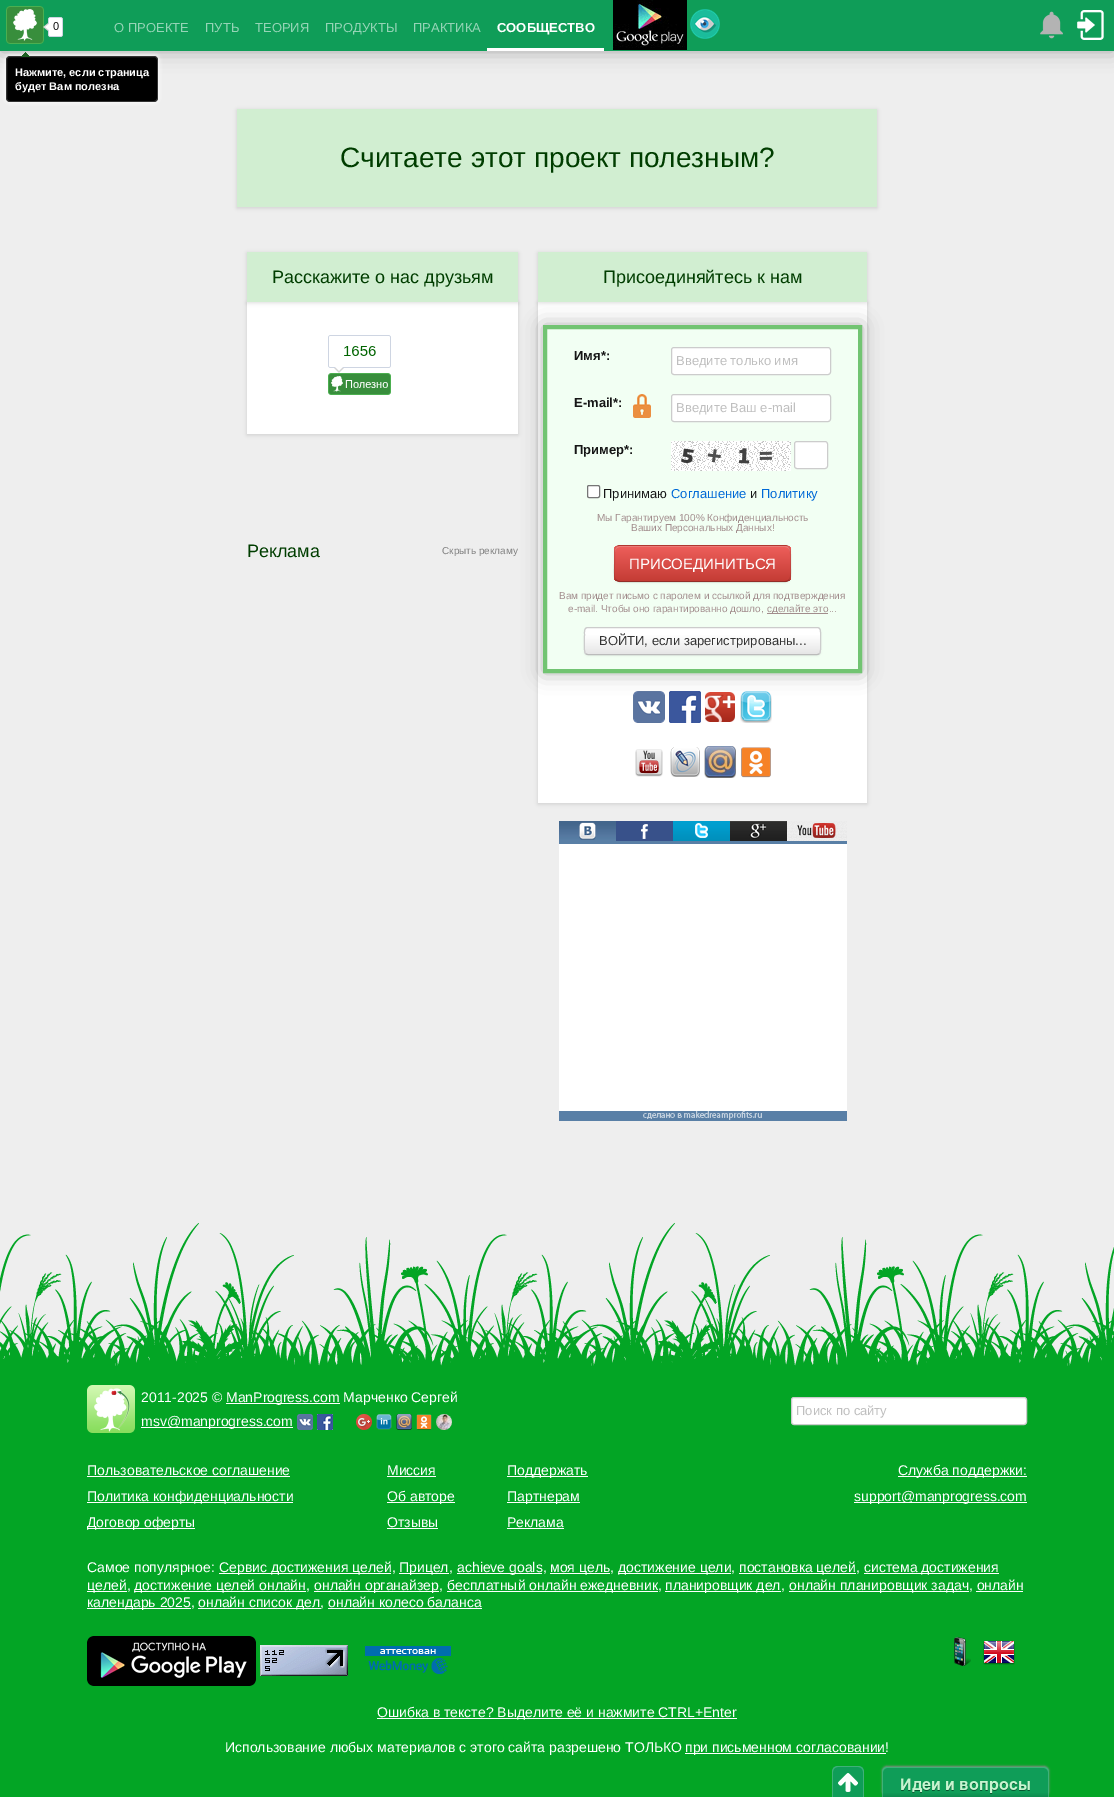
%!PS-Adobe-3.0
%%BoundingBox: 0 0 1114 1797
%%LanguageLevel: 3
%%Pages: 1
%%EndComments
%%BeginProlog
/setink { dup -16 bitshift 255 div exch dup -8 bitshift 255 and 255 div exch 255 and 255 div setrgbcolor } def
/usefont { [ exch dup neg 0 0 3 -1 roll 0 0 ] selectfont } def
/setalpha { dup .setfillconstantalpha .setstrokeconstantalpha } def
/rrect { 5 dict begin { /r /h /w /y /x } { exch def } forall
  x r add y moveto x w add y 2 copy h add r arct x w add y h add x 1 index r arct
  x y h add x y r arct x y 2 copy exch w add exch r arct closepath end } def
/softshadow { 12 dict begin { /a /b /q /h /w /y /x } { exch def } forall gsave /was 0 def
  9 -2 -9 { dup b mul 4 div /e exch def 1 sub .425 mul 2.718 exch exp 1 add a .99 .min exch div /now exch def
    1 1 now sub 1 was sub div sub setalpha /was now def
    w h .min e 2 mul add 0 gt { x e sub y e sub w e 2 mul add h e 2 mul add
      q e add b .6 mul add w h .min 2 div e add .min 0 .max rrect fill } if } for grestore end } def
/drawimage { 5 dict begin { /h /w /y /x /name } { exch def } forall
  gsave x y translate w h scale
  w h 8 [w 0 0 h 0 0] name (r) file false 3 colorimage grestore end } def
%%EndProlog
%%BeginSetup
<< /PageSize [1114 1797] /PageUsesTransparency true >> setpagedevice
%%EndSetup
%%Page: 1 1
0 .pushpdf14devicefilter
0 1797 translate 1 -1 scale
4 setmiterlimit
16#EEEEEE setink
0 0 1114 1797 rectfill
16#000000 setink
0 0 1114 51 0 10 0.3 softshadow
16#0F9D58 setink
0 0 1114 51 rectfill
(img1.raw) 6 6 57 38 drawimage
/LiberationSans-Regular 13 usefont
16#95D4B6 setink
[
    [(О ПРОЕКТЕ) 114 32]
    [(ПУТЬ) 205 32]
    [(ТЕОРИЯ) 255 32]
    [(ПРОДУКТЫ) 325 32]
    [(ПРАКТИКА) 413 32]
] { aload pop moveto show } forall
16#FFFFFF setink
487 48 117 3 rectfill
/LiberationSans-Bold 13 usefont
497 32 moveto (СООБЩЕСТВО) show
(img2.raw) 613 0 74 50 drawimage
(img3.raw) 690 9 30 30 drawimage
(img4.raw) 1040 11 23 28 drawimage
(img5.raw) 1077 10 27 30 drawimage
5 55 154 48 5 2 0.8 softshadow
16#000000 setink
6 56 152 46 4 rrect fill
0.2 setalpha
16#FFFFFF setink
6.5 56.5 151 45 3.5 rrect stroke
1 setalpha
(img6.raw) 21 52 9 5 drawimage
/LiberationSans-Bold 11 usefont
15 76 moveto (Нажмите, если страница) show
15 90 moveto (будет Вам полезна) show
16#000000 setink
237 110 640 98 0 2 0.14 softshadow
16#D1EED1 setink
237 109 640 98 rectfill
/LiberationSans-Regular 28 usefont
16#003D00 setink
340 167 moveto (Считаете этот проект полезным?) show
16#000000 setink
247 303 271 132 0 2 0.14 softshadow
16#FFFFFF setink
247 302 271 132 rectfill
16#000000 setink
247 253 271 50 0 2 0.14 softshadow
538 303 329 501 0 2 0.14 softshadow
16#FFFFFF setink
538 302 329 501 rectfill
16#000000 setink
543 325 319 348 0 10 0.3 softshadow
16#D1EED1 setink
247 252 271 50 rectfill
/LiberationSans-Regular 18 usefont
16#003D00 setink
272 283 moveto (Расскажите о нас друзьям) show
(img7.raw) 328 335 63 60 drawimage
247 557 moveto (Реклама) show
/LiberationSans-Regular 10 usefont
16#808080 setink
442 554 moveto (Скрыть рекламу) show
16#000000 setink
538 253 329 50 0 2 0.14 softshadow
16#D1EED1 setink
538 252 329 50 rectfill
/LiberationSans-Regular 18 usefont
16#003D00 setink
603 283 moveto (Присоединяйтесь к нам) show
16#F2FFF3 setink
545 327 moveto 860 327 lineto 860 671 lineto 545 671 lineto closepath gsave fill grestore
16#72C472 setink
4 setlinewidth
stroke
/LiberationSans-Bold 13 usefont
16#161616 setink
574 360 moveto (Имя*:) show
16#FFFFFF setink
671.5 347.5 159 27 2.5 rrect gsave fill grestore
16#CCCCCC setink
1 setlinewidth
stroke
/LiberationSans-Regular 13 usefont
16#BFBFBF setink
676 365 moveto (Введите только имя) show
/LiberationSans-Bold 13 usefont
16#161616 setink
574 407 moveto (E-mail*:) show
(img8.raw) 633 394 18 24 drawimage
16#FFFFFF setink
671.5 394.5 159 27 2.5 rrect gsave fill grestore
16#CCCCCC setink
stroke
/LiberationSans-Regular 13 usefont
16#BFBFBF setink
676 412 moveto (Введите Ваш e-mail) show
/LiberationSans-Bold 13 usefont
16#161616 setink
574 454 moveto (Пример*:) show
(img9.raw) 671 441 120 30 drawimage
16#FFFFFF setink
794.5 441.5 33 27 2.5 rrect gsave fill grestore
16#CCCCCC setink
stroke
16#FFFFFF setink
587.5 485.5 12 12 1.5 rrect gsave fill grestore
16#767676 setink
stroke
/LiberationSans-Regular 13 usefont
16#161616 setink
603 498 moveto (Принимаю) show
16#0069D6 setink
671 498 moveto (Соглашение) show
16#161616 setink
750 498 moveto (и) show
16#0069D6 setink
761 498 moveto (Политику) show
/LiberationSans-Regular 10 usefont
16#A28D8D setink
597 521 moveto (Мы Гарантируем 100% Конфиденциальность) show
631 531 moveto (Ваших Персональных Данных!) show
16#000000 setink
614 546 177 37 6 1 0.05 softshadow
16#C43C35 setink
614 545 177 37 6 rrect fill
gsave
614 545 177 37 6 rrect clip newpath
gsave 614 546 moveto 791 546 lineto 791 581 lineto 614 581 lineto closepath clip newpath
<< /ShadingType 2 /ColorSpace /DeviceRGB /Coords [703 546 703 581] /Extend [true true] /Function << /FunctionType 2 /Domain [0 1] /C0 [0.933 0.373 0.357] /C1 [0.769 0.235 0.208] /N 1 >> >> shfill grestore
grestore
16#F17F7B setink
620 547 moveto 785 547 lineto 788 547 790 549 790 552 curveto 790 549 789 547 786 546 curveto 620 546 lineto 617 547 lineto 615 548 615 550 615 552 curveto 615 549 617 547 620 547 curveto closepath fill
0.25 setalpha
16#000000 setink
789 580 moveto 788 581 786.5 581.5 785 581.5 curveto 620 581.5 lineto 618.5 581.5 617 581 616 580 curveto stroke
0.1 setalpha
616 580 moveto 613 577 614.5 567 614.5 563.5 curveto 614.5 555 lineto 614.5 551 614.5 545.5 620 545.5 curveto 785 545.5 lineto 790.5 545.5 790.5 551 790.5 555 curveto 790.5 563.5 lineto 790.5 567 792 577 789 580 curveto stroke
/LiberationSans-Regular 15 usefont
1 setalpha
16#FFFFFF setink
629 569 moveto (ПРИСОЕДИНИТЬСЯ) show
/LiberationSans-Regular 10 usefont
16#A28D8D setink
559 599 moveto (Вам придет письмо с паролем и ссылкой для подтверждения) show
568 612 moveto (e-mail. Чтобы оно гарантированно дошло,) show
767 613 61 1 rectfill
767 612 moveto (сделайте это...) show
16#000000 setink
584 628 237 28 4 1 0.05 softshadow
16#E6E6E6 setink
584 627 237 28 4 rrect fill
gsave
584 627 237 28 4 rrect clip newpath
gsave 585 628 moveto 820 628 lineto 820 654 lineto 585 654 lineto closepath clip newpath
<< /ShadingType 2 /ColorSpace /DeviceRGB /Coords [703 628 703 654] /Extend [true true] /Function << /FunctionType 3 /Domain [0 1] /Functions [<< /FunctionType 2 /Domain [0 1] /C0 [1 1 1] /C1 [1 1 1] /N 1 >> << /FunctionType 2 /Domain [0 1] /C0 [1 1 1] /C1 [0.902 0.902 0.902] /N 1 >>] /Bounds [0.25] /Encode [0 1 0 1] >> >> shfill grestore
grestore
16#BBBBBB setink
819.5 653.5 moveto 819 654 818 654.5 817 654.5 curveto 588 654.5 lineto 587 654.5 586 654 585.5 653.5 curveto stroke
16#CCCCCC setink
585.5 653.5 moveto 583.5 651 584.5 638 584.5 634.5 curveto 584.5 631.5 584 627.5 588 627.5 curveto 817 627.5 lineto 821 627.5 820.5 631.5 820.5 634.5 curveto 820.5 638 821.5 651 819.5 653.5 curveto stroke
/LiberationSans-Regular 13 usefont
16#333333 setink
599 645 moveto (ВОЙТИ, если зарегистрированы...) show
(img10.raw) 633 691 32 32 drawimage
(img11.raw) 669 691 32 32 drawimage
(img12.raw) 705 692 30 30 drawimage
(img13.raw) 740 691 32 32 drawimage
(img14.raw) 635 749 28 28 drawimage
(img15.raw) 670 747 30 30 drawimage
(img16.raw) 704 746 32 32 drawimage
(img17.raw) 741 747 30 31 drawimage
16#597FA6 setink
559 841 288 3 rectfill
(img18.raw) 559 821 57 20 drawimage
(img19.raw) 579 822 17 18 drawimage
16#38518A setink
616 821 57 20 rectfill
(img20.raw) 641 824 7 15 drawimage
(img21.raw) 673 821 57 20 drawimage
(img22.raw) 695 823 13 15 drawimage
(img23.raw) 730 821 57 20 drawimage
(img24.raw) 749 823 18 16 drawimage
(img25.raw) 787 821 60 20 drawimage
(img26.raw) 797 823 39 15 drawimage
16#FFFFFF setink
559 844 288 267 rectfill
16#597FA6 setink
559 1111 288 10 rectfill
(img27.raw) 643 1111 119 9 drawimage
(img28.raw) 0 1223 1114 145 drawimage
16#03A525 setink
0 1368 1114 429 rectfill
(img29.raw) 87 1385 48 48 drawimage
/LiberationSans-Regular 14 usefont
16#FFFFFF setink
141 1402 moveto (2011-2025 ©) show
226 1403 114 1 rectfill
226 1402 moveto (ManProgress.com Марченко Сергей) show
141 1427 152 1 rectfill
141 1426 moveto (msv@manprogress.com) show
(img30.raw) 297 1414 16 16 drawimage
(img31.raw) 317 1414 16 16 drawimage
(img32.raw) 356 1414 16 16 drawimage
(img33.raw) 376 1414 16 16 drawimage
(img34.raw) 396 1414 16 16 drawimage
(img35.raw) 416 1414 16 16 drawimage
(img36.raw) 436 1414 16 16 drawimage
791.5 1397.5 235 27 2.5 rrect gsave fill grestore
16#CCCCCC setink
stroke
/LiberationSans-Regular 13 usefont
16#BFBFBF setink
796 1415 moveto (Поиск по сайту) show
/LiberationSans-Regular 14 usefont
16#FFFFFF setink
87 1475 moveto (Пользовательское соглашение) show
87 1476 203 1 rectfill
87 1502 206 1 rectfill
87 1501 moveto (Политика конфиденциальности) show
87 1528 108 1 rectfill
87 1527 moveto (Договор оферты) show
387 1475 moveto (Миссия) show
387 1476 49 1 rectfill
387 1502 68 1 rectfill
387 1501 moveto (Об авторе) show
387 1527 moveto (Отзывы) show
387 1528 51 1 rectfill
507 1476 81 1 rectfill
507 1475 moveto (Поддержать) show
507 1502 73 1 rectfill
507 1501 moveto (Партнерам) show
507 1527 moveto (Реклама) show
507 1528 57 1 rectfill
898 1476 129 1 rectfill
898 1475 moveto (Служба поддержки:) show
854 1502 173 1 rectfill
854 1501 moveto (support@manprogress.com) show
87 1572 moveto (Самое популярное:) show
219 1573 172 1 rectfill
219 1572 moveto (Сервис достижения целей,) show
399 1573 50 1 rectfill
399 1572 moveto (Прицел,) show
457 1573 85 1 rectfill
457 1572 moveto (achieve goals,) show
550 1573 60 1 rectfill
550 1572 moveto (моя цель,) show
618 1573 113 1 rectfill
618 1572 moveto (достижение цели,) show
739 1573 117 1 rectfill
739 1572 moveto (постановка целей,) show
864 1573 135 1 rectfill
864 1572 moveto (система достижения) show
87 1591 40 1 rectfill
87 1590 moveto (целей,) show
134 1591 172 1 rectfill
134 1590 moveto (достижение целей онлайн,) show
314 1591 125 1 rectfill
314 1590 moveto (онлайн органайзер,) show
447 1591 211 1 rectfill
447 1590 moveto (бесплатный онлайн ежедневник,) show
665 1591 116 1 rectfill
665 1590 moveto (планировщик дел,) show
789 1591 180 1 rectfill
789 1590 moveto (онлайн планировщик задач, онлайн) show
87 1608 104 1 rectfill
87 1607 moveto (календарь 2025,) show
976 1591 47 1 rectfill
198 1608 123 1 rectfill
198 1607 moveto (онлайн список дел, онлайн колесо баланса) show
328 1608 154 1 rectfill
(img37.raw) 87 1636 169 50 drawimage
(img38.raw) 260 1645 88 31 drawimage
(img39.raw) 365 1646 86 28 drawimage
(img40.raw) 954 1637 17 29 drawimage
(img41.raw) 983 1640 32 25 drawimage
377 1718 360 1 rectfill
377 1717 moveto (Ошибка в тексте? Выделите её и нажмите CTRL+Enter) show
225 1752 moveto (Использование любых материалов с этого сайта разрешено ТОЛЬКО) show
685 1753 201 1 rectfill
685 1752 moveto (при письменном согласовании!) show
16#0F9D58 setink
838 1766 moveto 858 1766 lineto 861.5 1766 864 1768.5 864 1772 curveto 864 1797 lineto 832 1797 lineto 832 1772 lineto 832 1768.5 834.5 1766 838 1766 curveto closepath fill
(img42.raw) 838 1773 20 19 drawimage
16#3FB079 setink
838 1766 moveto 858 1766 lineto 861.5 1766 864 1768.5 864 1772 curveto 864 1797 lineto 832 1797 lineto 832 1772 lineto 832 1768.5 834.5 1766 838 1766 curveto closepath 838 1767 moveto 858 1767 lineto 861 1767 863 1769 863 1772 curveto 863 1797 lineto 833 1797 lineto 833 1772 lineto 833 1769 835 1767 838 1767 curveto closepath eofill
16#888888 setink
882 1766 167 30 5 1 1 softshadow
16#0F9D58 setink
887 1767 moveto 1044 1767 lineto 1047 1767 1049 1769 1049 1772 curveto 1049 1797 lineto 882 1797 lineto 882 1772 lineto 882 1769 884 1767 887 1767 curveto closepath fill
(img43.raw) 882 1793 167 4 drawimage
0.2 setalpha
16#FFFFFF setink
887 1767 moveto 1044 1767 lineto 1047 1767 1049 1769 1049 1772 curveto 1049 1797 lineto 882 1797 lineto 882 1772 lineto 882 1769 884 1767 887 1767 curveto closepath 887 1768 moveto 1044 1768 lineto 1046 1768 1048 1770 1048 1772 curveto 1048 1797 lineto 883 1797 lineto 883 1772 lineto 883 1770 885 1768 887 1768 curveto closepath eofill
1 setalpha
(img44.raw) 901 1778 129 16 drawimage
.poppdf14devicefilter showpage
%%EOF
